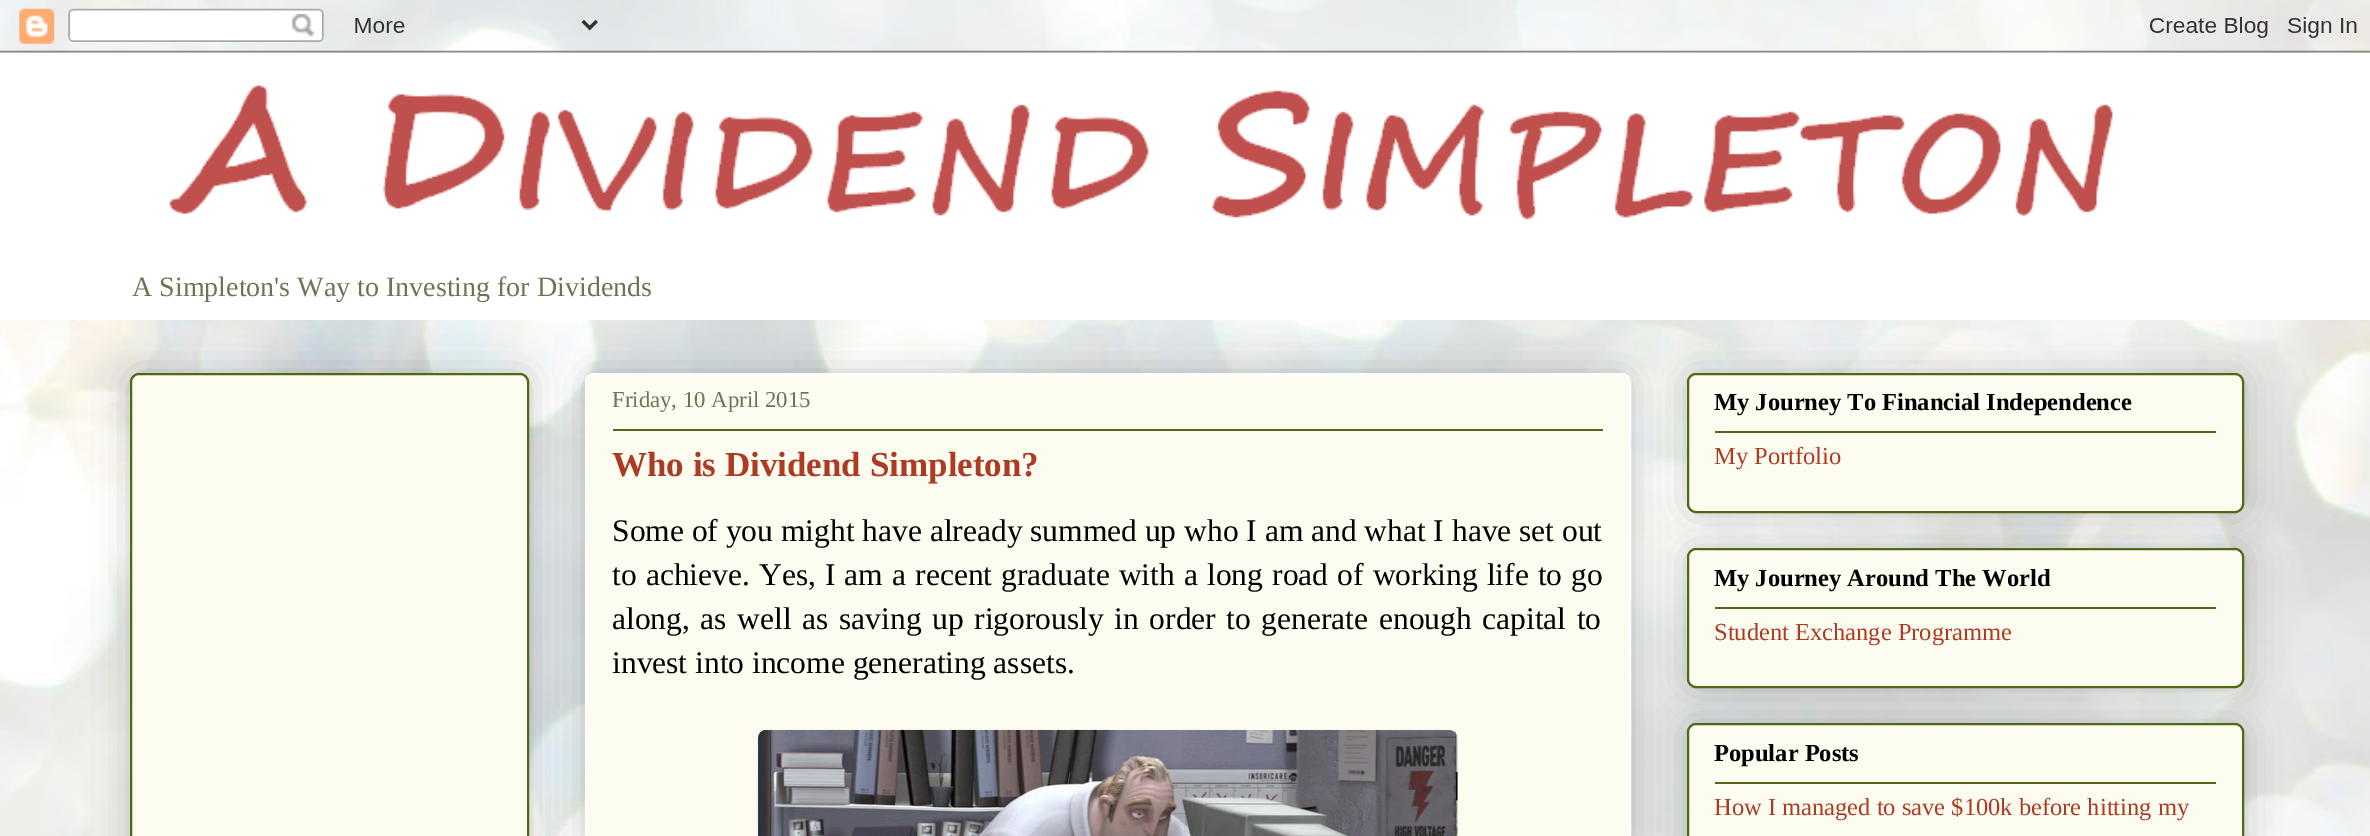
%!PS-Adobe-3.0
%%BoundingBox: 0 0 2370 836
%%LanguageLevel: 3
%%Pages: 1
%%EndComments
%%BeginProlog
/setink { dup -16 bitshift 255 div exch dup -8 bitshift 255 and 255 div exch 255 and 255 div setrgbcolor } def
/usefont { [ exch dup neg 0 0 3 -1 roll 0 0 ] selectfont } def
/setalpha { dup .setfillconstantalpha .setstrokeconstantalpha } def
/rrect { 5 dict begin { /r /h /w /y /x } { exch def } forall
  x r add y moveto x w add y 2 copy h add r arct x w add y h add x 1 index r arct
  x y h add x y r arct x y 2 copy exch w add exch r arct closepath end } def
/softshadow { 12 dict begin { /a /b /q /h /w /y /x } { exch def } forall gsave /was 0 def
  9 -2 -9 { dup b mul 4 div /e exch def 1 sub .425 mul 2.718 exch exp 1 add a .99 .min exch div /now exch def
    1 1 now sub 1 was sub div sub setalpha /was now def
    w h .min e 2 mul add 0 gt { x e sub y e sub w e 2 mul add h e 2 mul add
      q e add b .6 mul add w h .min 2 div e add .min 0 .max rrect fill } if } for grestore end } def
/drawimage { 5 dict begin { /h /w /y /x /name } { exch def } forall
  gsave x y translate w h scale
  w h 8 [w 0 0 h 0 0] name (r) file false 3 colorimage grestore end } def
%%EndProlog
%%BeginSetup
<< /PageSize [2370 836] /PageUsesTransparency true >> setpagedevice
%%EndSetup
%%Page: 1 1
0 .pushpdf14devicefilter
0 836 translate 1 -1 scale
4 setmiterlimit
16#FFFFFF setink
0 0 2370 836 rectfill
(img1.raw) 0 0 2370 836 drawimage
0 53 2370 267 rectfill
(img3.raw) 130 52 2042 168 drawimage
(img2.raw) 0 0 2370 53 drawimage
/LiberationSerif-Regular 28 usefont
16#6E7355 setink
132 296 moveto (A Simpleton's Way to Investing for Dividends) show
16#000000 setink
130 373 399 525 9 17.5 0.2 softshadow
16#FCFCF1 setink
131 374 397 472 8 rrect gsave fill grestore
16#516814 setink
2 setlinewidth
stroke
16#000000 setink
585 373 1046 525 9 17.5 0.2 softshadow
16#FCFCF1 setink
586 374 1044 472 8 rrect gsave fill grestore
16#FFFFFF setink
stroke
/LiberationSerif-Regular 22.75 usefont
16#6E7355 setink
612 407 moveto (Friday, 10 April 2015) show
16#516814 setink
613 429 990 2 rectfill
/LiberationSerif-Bold 35 usefont
16#AD3A22 setink
612 476 moveto (Who is Dividend Simpleton?) show
/LiberationSerif-Regular 31.5 usefont
16#000000 setink
612 541 moveto (Some of you might have already summed up who I am and what I have set out) show
612 585 moveto 1.25 0 32 (to achieve. Yes, I am a recent graduate with a long road of working life to go) widthshow
612 629 moveto 2.75 0 32 (along, as well as saving up rigorously in order to generate enough capital to) widthshow
612 673 moveto (invest into income generating assets.) show
(img4.raw) 757 729 701 107 drawimage
1687 373 557 140 9 17.5 0.2 softshadow
16#FCFCF1 setink
1688 374 555 138 8 rrect gsave fill grestore
16#516814 setink
stroke
/LiberationSerif-Bold 24.5 usefont
16#000000 setink
1714 410 moveto (My Journey To Financial Independence) show
16#516814 setink
1715 431 501 2 rectfill
/LiberationSerif-Regular 24.5 usefont
16#AD3A22 setink
1714 464 moveto (My Portfolio) show
16#000000 setink
1687 548 557 140 9 17.5 0.2 softshadow
16#FCFCF1 setink
1688 549 555 138 8 rrect gsave fill grestore
16#516814 setink
stroke
/LiberationSerif-Bold 24.5 usefont
16#000000 setink
1714 586 moveto (My Journey Around The World) show
16#516814 setink
1715 607 501 2 rectfill
/LiberationSerif-Regular 24.5 usefont
16#AD3A22 setink
1714 640 moveto (Student Exchange Programme) show
16#000000 setink
1687 723 557 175 9 17.5 0.2 softshadow
16#FCFCF1 setink
1688 724 555 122 8 rrect gsave fill grestore
16#516814 setink
stroke
/LiberationSerif-Bold 24.5 usefont
16#000000 setink
1714 761 moveto (Popular Posts) show
16#516814 setink
1715 782 501 2 rectfill
/LiberationSerif-Regular 24.5 usefont
16#AD3A22 setink
1714 815 moveto (How I managed to save $100k before hitting my) show
.poppdf14devicefilter showpage
%%EOF
